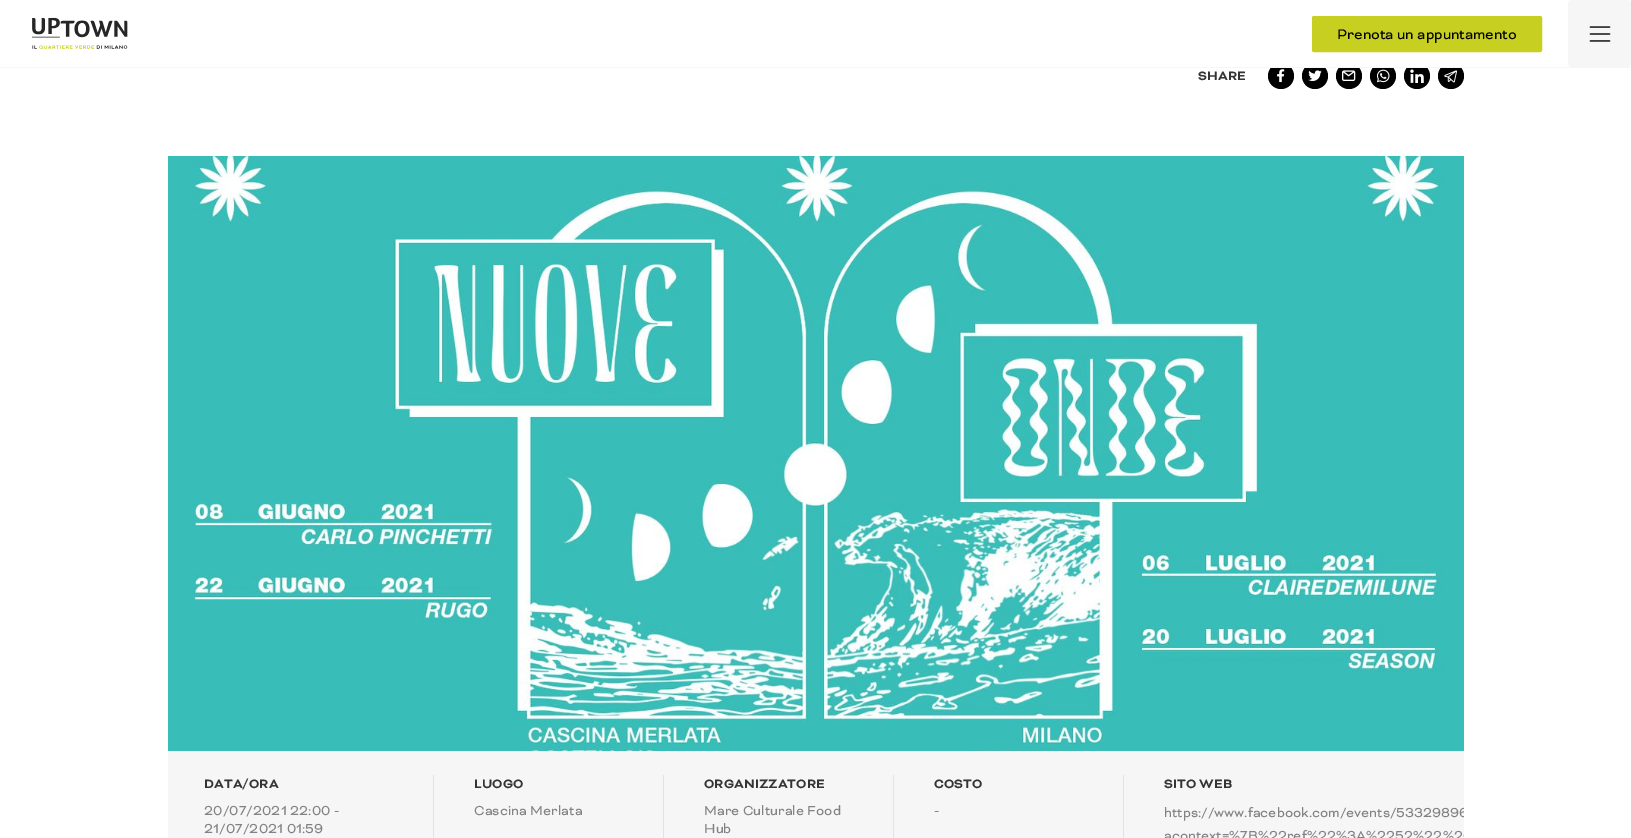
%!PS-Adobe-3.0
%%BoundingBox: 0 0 1631 838
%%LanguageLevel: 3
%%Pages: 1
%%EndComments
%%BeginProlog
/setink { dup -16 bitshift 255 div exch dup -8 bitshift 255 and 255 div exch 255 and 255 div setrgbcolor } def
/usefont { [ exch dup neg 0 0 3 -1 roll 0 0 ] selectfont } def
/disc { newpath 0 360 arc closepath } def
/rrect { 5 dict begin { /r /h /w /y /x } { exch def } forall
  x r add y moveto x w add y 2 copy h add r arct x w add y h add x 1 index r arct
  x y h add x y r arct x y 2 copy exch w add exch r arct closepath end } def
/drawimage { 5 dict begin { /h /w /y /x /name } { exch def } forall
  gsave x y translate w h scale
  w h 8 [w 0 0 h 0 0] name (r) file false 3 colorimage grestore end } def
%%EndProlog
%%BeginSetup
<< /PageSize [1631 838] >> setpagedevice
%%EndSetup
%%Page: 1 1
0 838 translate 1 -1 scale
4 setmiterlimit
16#FFFFFF setink
0 0 1631 838 rectfill
16#000000 setink
1281 76 13 disc fill
1315 76 13 disc fill
1349 76 13 disc fill
1383 76 13 disc fill
1417 76 13 disc fill
1451 76 13 disc fill
16#FFFFFF setink
1271 63 190 4 rectfill
16#F6F6F6 setink
0 67 1631 1 rectfill
(img1.raw) 32 17 96 33 drawimage
16#C7CF21 setink
1312.5 16.5 229 35 1.5 rrect gsave fill grestore
stroke
/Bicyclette-Regular 16 usefont
16#000000 setink
1337 39 moveto (Prenota un appuntamento) show
16#F6F6F6 setink
1568 0 63 67 4 rrect fill
(img2.raw) 1589 26 22 16 drawimage
/Bicyclette-Bold 14 usefont
16#343434 setink
1198 80 moveto 0.1 0 (SHARE) ashow
(img3.raw) 1277 69 8 14 drawimage
(img4.raw) 1308 70 14 11 drawimage
(img5.raw) 1342 70 14 11 drawimage
(img6.raw) 1377 69 13 14 drawimage
(img7.raw) 1410 69 14 14 drawimage
(img8.raw) 1444 70 13 13 drawimage
(img9.raw) 168 156 1296 595 drawimage
16#F6F6F6 setink
168 751 1296 87 rectfill
16#E3E3E3 setink
433 775 1 63 rectfill
16#343434 setink
204 788 moveto 0.1 0 (DATA/ORA) ashow
/Bicyclette-Regular 15 usefont
16#828282 setink
204 815 moveto 0.1 0 (20/07/2021 22:00 -) ashow
204 833 moveto 0.1 0 (21/07/2021 01:59) ashow
16#E3E3E3 setink
663 775 1 63 rectfill
/Bicyclette-Bold 14 usefont
16#343434 setink
474 788 moveto 0.1 0 (LUOGO) ashow
/Bicyclette-Regular 15 usefont
16#828282 setink
474 815 moveto 0.1 0 (Cascina Merlata) ashow
16#E3E3E3 setink
893 775 1 63 rectfill
/Bicyclette-Bold 14 usefont
16#343434 setink
704 788 moveto 0.1 0 (ORGANIZZATORE) ashow
/Bicyclette-Regular 15 usefont
16#828282 setink
704 815 moveto 0.1 0 (Mare Culturale Food) ashow
704 833 moveto 0.1 0 (Hub) ashow
16#E3E3E3 setink
1123 775 1 63 rectfill
/Bicyclette-Bold 14 usefont
16#343434 setink
934 788 moveto 0.1 0 (COSTO) ashow
/Bicyclette-Regular 15 usefont
16#828282 setink
934 815 moveto 0.1 0 (-) ashow
/Bicyclette-Bold 14 usefont
16#343434 setink
1164 788 moveto 0.1 0 (SITO WEB) ashow
gsave
168 751 1296 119 rectclip
/Bicyclette-Regular 15 usefont
16#828282 setink
1164 817 moveto (https://www.facebook.com/events/53329896) show
1164 840 moveto (acontext=%7B%22ref%22%3A%2252%22%2C) show
grestore
showpage
%%EOF
